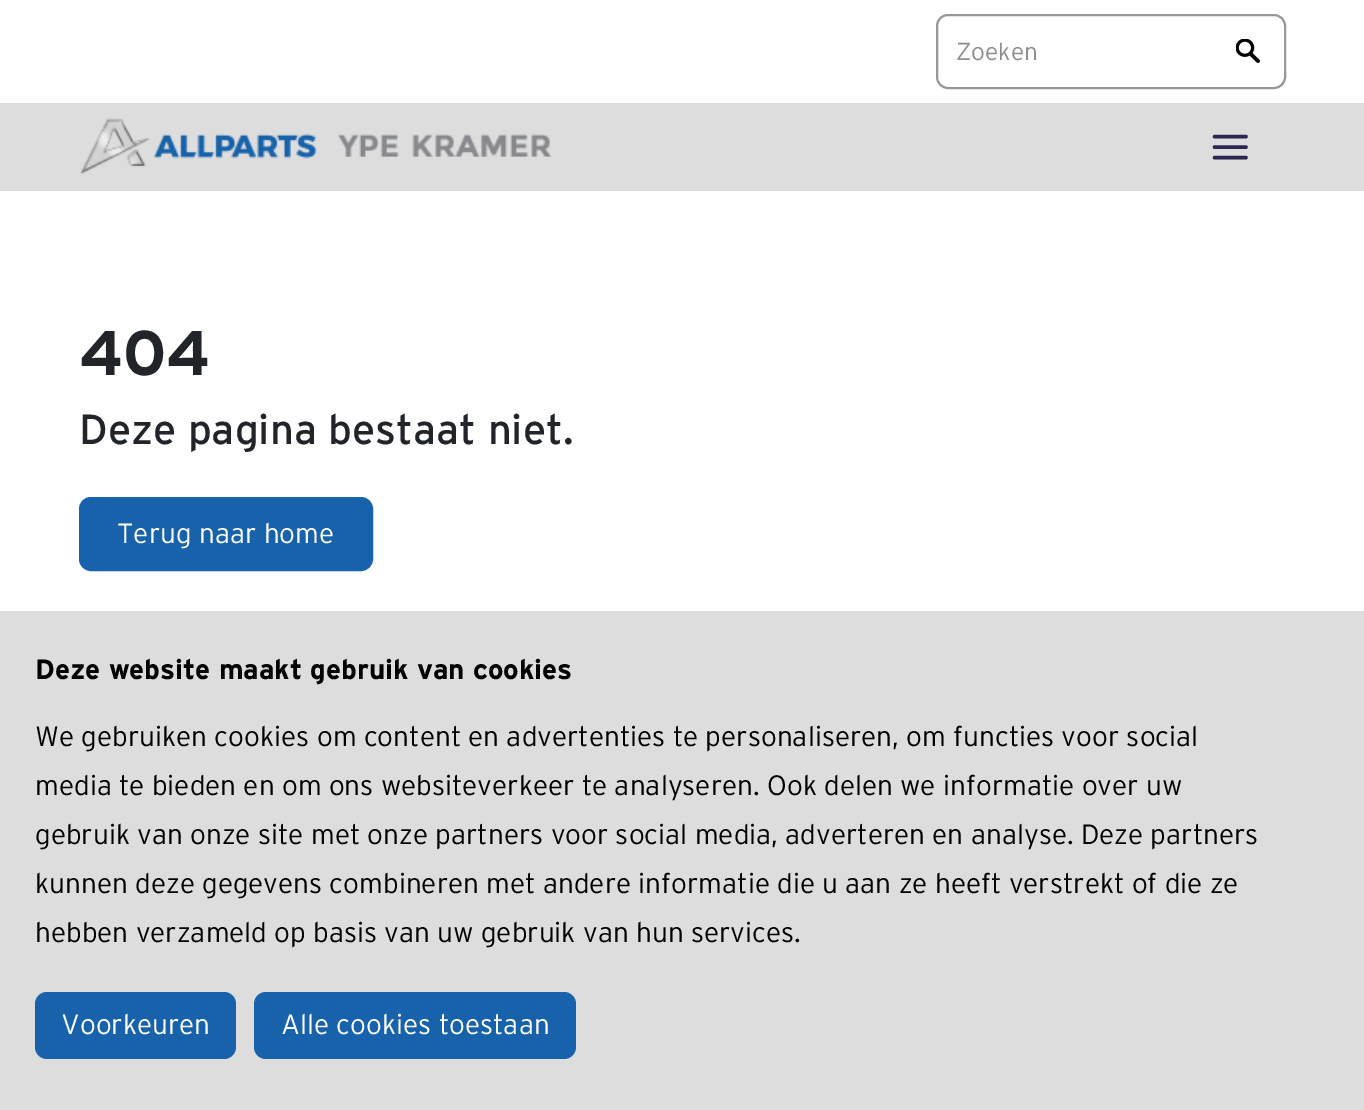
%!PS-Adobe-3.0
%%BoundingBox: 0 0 1364 1110
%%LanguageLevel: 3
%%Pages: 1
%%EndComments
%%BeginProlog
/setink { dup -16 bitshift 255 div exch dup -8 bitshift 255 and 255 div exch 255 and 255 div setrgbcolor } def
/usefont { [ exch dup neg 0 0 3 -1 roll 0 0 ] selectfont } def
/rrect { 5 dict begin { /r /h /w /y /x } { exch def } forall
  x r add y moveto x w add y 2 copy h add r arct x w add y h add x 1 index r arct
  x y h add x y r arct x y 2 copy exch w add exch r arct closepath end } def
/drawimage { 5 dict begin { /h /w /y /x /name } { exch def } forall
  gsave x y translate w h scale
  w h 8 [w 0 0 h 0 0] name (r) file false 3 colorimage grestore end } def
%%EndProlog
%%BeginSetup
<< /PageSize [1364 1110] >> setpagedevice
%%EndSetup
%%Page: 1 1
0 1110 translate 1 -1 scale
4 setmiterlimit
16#FFFFFF setink
0 0 1364 1110 rectfill
16#979797 setink
2 setlinewidth
937 15 348 73 11 rrect stroke
/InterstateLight-Light 24.5 usefont
16#8C8E90 setink
956 60 moveto (Zoeken) show
(img1.raw) 1236 39 24 24 drawimage
16#DDDDDD setink
0 103 1364 88 rectfill
(img2.raw) 80 118 472 56 drawimage
16#2B2652 setink
3.5 setlinewidth
1 setlinecap
1 setlinejoin
1214.5 147 moveto 1246 147 lineto 1214.5 136.5 moveto 1246 136.5 lineto 1214.5 157.5 moveto 1246 157.5 lineto stroke
/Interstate-Bold 63 usefont
16#212529 setink
79 375 moveto (404) show
/Interstate-Regular 42 usefont
79 444 moveto (Deze pagina bestaat niet.) show
16#1762AB setink
81 499 290 70 10 rrect gsave fill grestore
4 setlinewidth
0 setlinecap
0 setlinejoin
stroke
/InterstateLight-Light 28 usefont
16#FFFFFF setink
117 543 moveto (Terug naar home) show
16#DDDDDD setink
0 611 1364 499 rectfill
/Interstate-Bold 28 usefont
16#000000 setink
35 679 moveto (Deze website maakt gebruik van cookies) show
/InterstateLight-Light 28 usefont
[
    [(We gebruiken cookies om content en advertenties te personaliseren, om functies voor social) 35 746]
    [(media te bieden en om ons websiteverkeer te analyseren. Ook delen we informatie over uw) 35 795]
    [(gebruik van onze site met onze partners voor social media, adverteren en analyse. Deze partners) 35 844]
    [(kunnen deze gegevens combineren met andere informatie die u aan ze heeft verstrekt of die ze) 35 893]
    [(hebben verzameld op basis van uw gebruik van hun services.) 35 942]
] { aload pop moveto show } forall
16#1762AB setink
35 992 201 67 12 rrect fill
16#FFFFFF setink
61 1034 moveto (Voorkeuren) show
16#1762AB setink
254 992 322 67 12 rrect fill
16#FFFFFF setink
281 1034 moveto (Alle cookies toestaan) show
showpage
%%EOF
